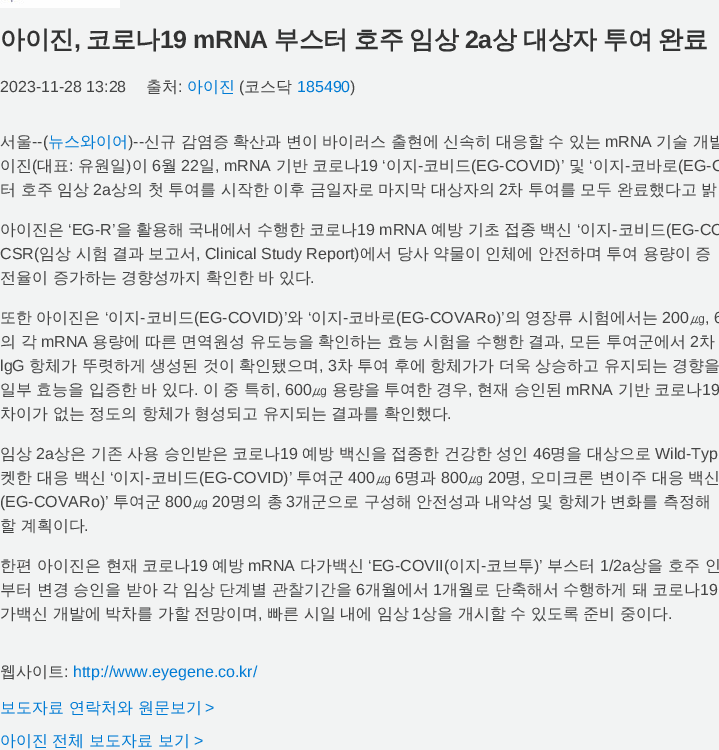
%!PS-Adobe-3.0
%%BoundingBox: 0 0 719 750
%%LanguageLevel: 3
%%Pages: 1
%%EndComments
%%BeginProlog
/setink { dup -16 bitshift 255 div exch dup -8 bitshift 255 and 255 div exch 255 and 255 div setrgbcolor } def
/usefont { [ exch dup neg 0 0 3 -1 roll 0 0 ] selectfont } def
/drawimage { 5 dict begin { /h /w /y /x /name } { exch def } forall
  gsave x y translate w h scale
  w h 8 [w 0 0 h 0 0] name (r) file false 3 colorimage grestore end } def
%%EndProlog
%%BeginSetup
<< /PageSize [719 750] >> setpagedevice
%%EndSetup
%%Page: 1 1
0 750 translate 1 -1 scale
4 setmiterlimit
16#F2F3F3 setink
0 0 719 750 rectfill
(img1.raw) 0 0 120 8 drawimage
/WenQuanYiZenHei-Bold 25 usefont
16#333333 setink
0 48 moveto -0.5 0 (아이진) ashow
/LiberationSans-Bold 25 usefont
74 48 moveto -0.5 0 (,) ashow
/WenQuanYiZenHei-Bold 25 usefont
86 48 moveto -0.5 0 (코로나) ashow
/LiberationSans-Bold 25 usefont
160 48 moveto -0.5 0 (19 mRNA) ashow
/WenQuanYiZenHei-Bold 25 usefont
274 48 moveto -0.5 0 (부스터) ashow
354 48 moveto -0.5 0 (호주) ashow
409 48 moveto -0.5 0 (임상) ashow
/LiberationSans-Bold 25 usefont
465 48 moveto -0.5 0 (2a) ashow
/WenQuanYiZenHei-Bold 25 usefont
492 48 moveto -0.5 0 (상) ashow
523 48 moveto -0.5 0 (대상자) ashow
603 48 moveto -0.5 0 (투여) ashow
658 48 moveto -0.5 0 (완료) ashow
/LiberationSans-Regular 16 usefont
16#444444 setink
0 92 moveto (2023-11-28 13:28) show
/WenQuanYiZenHei-Medium 16 usefont
146 92 moveto (출처) show
/LiberationSans-Regular 16 usefont
178 92 moveto (:) show
/WenQuanYiZenHei-Medium 16 usefont
16#007BD4 setink
187 92 moveto (아이진) show
/LiberationSans-Regular 16 usefont
16#444444 setink
239 92 moveto (\() show
/WenQuanYiZenHei-Medium 16 usefont
244 92 moveto (코스닥) show
/LiberationSans-Regular 16 usefont
16#007BD4 setink
297 92 moveto (185490) show
16#444444 setink
350 92 moveto (\)) show
/WenQuanYiZenHei-Medium 16 usefont
0 147 moveto (서울) show
/LiberationSans-Regular 16 usefont
32 147 moveto (--\() show
/WenQuanYiZenHei-Medium 16 usefont
16#007BD4 setink
48 147 moveto (뉴스와이어) show
/LiberationSans-Regular 16 usefont
16#444444 setink
128 147 moveto (\)--) show
/WenQuanYiZenHei-Medium 16 usefont
144 147 moveto -0.25 0 32 (신규 감염증 확산과 변이 바이러스 출현에 신속히 대응할 수 있는) widthshow
/LiberationSans-Regular 16 usefont
605 147 moveto (mRNA) show
/WenQuanYiZenHei-Medium 16 usefont
656 147 moveto -0.25 0 32 (기술 개발) widthshow
0 171 moveto (이진) show
/LiberationSans-Regular 16 usefont
32 171 moveto (\() show
/WenQuanYiZenHei-Medium 16 usefont
37 171 moveto (대표) show
/LiberationSans-Regular 16 usefont
69 171 moveto (:) show
/WenQuanYiZenHei-Medium 16 usefont
78 171 moveto (유원일) show
/LiberationSans-Regular 16 usefont
126 171 moveto (\)) show
/WenQuanYiZenHei-Medium 16 usefont
132 171 moveto (이) show
/LiberationSans-Regular 16 usefont
152 171 moveto (6) show
/WenQuanYiZenHei-Medium 16 usefont
161 171 moveto (월) show
/LiberationSans-Regular 16 usefont
181 171 moveto (22) show
/WenQuanYiZenHei-Medium 16 usefont
199 171 moveto (일) show
/LiberationSans-Regular 16 usefont
215 171 moveto (, mRNA) show
/WenQuanYiZenHei-Medium 16 usefont
276 171 moveto (기반) show
312 171 moveto (코로나) show
/LiberationSans-Regular 16 usefont
360 171 moveto (19 ‘) show
/WenQuanYiZenHei-Medium 16 usefont
386 171 moveto (이지) show
/LiberationSans-Regular 16 usefont
418 171 moveto (-) show
/WenQuanYiZenHei-Medium 16 usefont
423 171 moveto (코비드) show
/LiberationSans-Regular 16 usefont
471 171 moveto (\(EG-COVID\)’) show
/WenQuanYiZenHei-Medium 16 usefont
569 171 moveto (및) show
/LiberationSans-Regular 16 usefont
589 171 moveto (‘) show
/WenQuanYiZenHei-Medium 16 usefont
593 171 moveto (이지) show
/LiberationSans-Regular 16 usefont
625 171 moveto (-) show
/WenQuanYiZenHei-Medium 16 usefont
630 171 moveto (코바로) show
/LiberationSans-Regular 16 usefont
678 171 moveto (\(EG-C) show
/WenQuanYiZenHei-Medium 16 usefont
0 195 moveto -0.25 0 32 (터 호주 임상) widthshow
/LiberationSans-Regular 16 usefont
93 195 moveto (2a) show
/WenQuanYiZenHei-Medium 16 usefont
111 195 moveto -0.25 0 32 (상의 첫 투여를 시작한 이후 금일자로 마지막 대상자의) widthshow
/LiberationSans-Regular 16 usefont
499 195 moveto (2) show
/WenQuanYiZenHei-Medium 16 usefont
507 195 moveto -0.25 0 32 (차 투여를 모두 완료했다고 밝) widthshow
0 235 moveto (아이진은) show
/LiberationSans-Regular 16 usefont
68 235 moveto (‘EG-R’) show
/WenQuanYiZenHei-Medium 16 usefont
[
    [(을) 116 235]
    [(활용해) 136 235]
    [(국내에서) 188 235]
    [(수행한) 257 235]
    [(코로나) 309 235]
] { aload pop moveto show } forall
/LiberationSans-Regular 16 usefont
357 235 moveto (19 mRNA) show
/WenQuanYiZenHei-Medium 16 usefont
[
    [(예방) 431 235]
    [(기초) 468 235]
    [(접종) 504 235]
    [(백신) 540 235]
] { aload pop moveto show } forall
/LiberationSans-Regular 16 usefont
577 235 moveto (‘) show
/WenQuanYiZenHei-Medium 16 usefont
580 235 moveto (이지) show
618 235 moveto (코비드) show
/LiberationSans-Regular 16 usefont
[
    [(\(EG-CO) 666 235]
    [(-) 612 235]
    [(CSR\() 0 259]
] { aload pop moveto show } forall
/WenQuanYiZenHei-Medium 16 usefont
[
    [(임상) 39 259]
    [(시험) 76 259]
    [(결과) 112 259]
    [(보고서) 148 259]
] { aload pop moveto show } forall
/LiberationSans-Regular 16 usefont
196 259 moveto (, Clinical Study Report\)) show
/WenQuanYiZenHei-Medium 16 usefont
[
    [(에서) 360 259]
    [(당사) 397 259]
    [(약물이) 433 259]
    [(인체에) 485 259]
    [(안전하며) 538 259]
    [(투여) 606 259]
    [(용량이) 643 259]
    [(증) 695 259]
] { aload pop moveto show } forall
0 283 moveto -0.25 0 32 (전율이 증가하는 경향성까지 확인한 바 있다) widthshow
/LiberationSans-Regular 16 usefont
310 283 moveto (.) show
/WenQuanYiZenHei-Medium 16 usefont
0 323 moveto (또한) show
36 323 moveto (아이진은) show
/LiberationSans-Regular 16 usefont
105 323 moveto (‘) show
/WenQuanYiZenHei-Medium 16 usefont
108 323 moveto (이지) show
146 323 moveto (코비드) show
/LiberationSans-Regular 16 usefont
194 323 moveto (\(EG-COVID\)’) show
/WenQuanYiZenHei-Medium 16 usefont
287 323 moveto (와) show
/LiberationSans-Regular 16 usefont
308 323 moveto (‘) show
/WenQuanYiZenHei-Medium 16 usefont
311 323 moveto (이지) show
348 323 moveto (코바로) show
/LiberationSans-Regular 16 usefont
396 323 moveto (\(EG-COVARo\)’) show
/WenQuanYiZenHei-Medium 16 usefont
[
    [(의) 505 323]
    [(영장류) 525 323]
    [(시험에서는) 578 323]
] { aload pop moveto show } forall
/LiberationSans-Regular 16 usefont
[
    [(200) 662 323]
    [(, 6) 705 323]
    [(-) 140 323]
    [(-) 343 323]
] { aload pop moveto show } forall
/WenQuanYiZenHei-Medium 16 usefont
689 323 moveto (㎍) show
0 347 moveto -0.25 0 32 (의 각) widthshow
/LiberationSans-Regular 16 usefont
41 347 moveto (mRNA) show
/WenQuanYiZenHei-Medium 16 usefont
92 347 moveto -0.25 0 32 (용량에 따른 면역원성 유도능을 확인하는 효능 시험을 수행한 결과) widthshow
569 347 moveto -0.25 0 32 (모든 투여군에서) widthshow
/LiberationSans-Regular 16 usefont
690 347 moveto (2) show
/WenQuanYiZenHei-Medium 16 usefont
699 347 moveto -0.25 0 32 (차) widthshow
/LiberationSans-Regular 16 usefont
560 347 moveto (,) show
0 371 moveto (lgG) show
/WenQuanYiZenHei-Medium 16 usefont
[
    [(항체가) 29 371]
    [(뚜렷하게) 82 371]
    [(생성된) 150 371]
    [(것이) 203 371]
    [(확인됐으며) 239 371]
] { aload pop moveto show } forall
/LiberationSans-Regular 16 usefont
319 371 moveto (, 3) show
/WenQuanYiZenHei-Medium 16 usefont
[
    [(차) 337 371]
    [(투여) 357 371]
    [(후에) 394 371]
    [(항체가가) 430 371]
    [(더욱) 499 371]
    [(상승하고) 535 371]
    [(유지되는) 604 371]
    [(경향을) 672 371]
    [(일부) 0 395]
    [(효능을) 36 395]
    [(입증한) 89 395]
    [(바) 141 395]
    [(있다) 162 395]
] { aload pop moveto show } forall
/LiberationSans-Regular 16 usefont
194 395 moveto (.) show
/WenQuanYiZenHei-Medium 16 usefont
[
    [(이) 203 395]
    [(중) 223 395]
    [(특히) 244 395]
] { aload pop moveto show } forall
/LiberationSans-Regular 16 usefont
276 395 moveto (, 600) show
/WenQuanYiZenHei-Medium 16 usefont
[
    [(㎍) 311 395]
    [(용량을) 332 395]
    [(투여한) 384 395]
    [(경우) 436 395]
] { aload pop moveto show } forall
/LiberationSans-Regular 16 usefont
468 395 moveto (,) show
/WenQuanYiZenHei-Medium 16 usefont
477 395 moveto (현재) show
514 395 moveto (승인된) show
/LiberationSans-Regular 16 usefont
566 395 moveto (mRNA) show
/WenQuanYiZenHei-Medium 16 usefont
618 395 moveto (기반) show
654 395 moveto (코로나) show
/LiberationSans-Regular 16 usefont
702 395 moveto (19) show
/WenQuanYiZenHei-Medium 16 usefont
0 419 moveto -0.25 0 32 (차이가 없는 정도의 항체가 형성되고 유지되는 결과를 확인했다) widthshow
/LiberationSans-Regular 16 usefont
447 419 moveto (.) show
/WenQuanYiZenHei-Medium 16 usefont
0 459 moveto (임상) show
/LiberationSans-Regular 16 usefont
36 459 moveto (2a) show
/WenQuanYiZenHei-Medium 16 usefont
54 459 moveto -0.25 0 32 (상은 기존 사용 승인받은 코로나) widthshow
/LiberationSans-Regular 16 usefont
280 459 moveto (19) show
/WenQuanYiZenHei-Medium 16 usefont
302 459 moveto -0.25 0 32 (예방 백신을 접종한 건강한 성인) widthshow
/LiberationSans-Regular 16 usefont
533 459 moveto (46) show
/WenQuanYiZenHei-Medium 16 usefont
550 459 moveto -0.25 0 32 (명을 대상으로) widthshow
/LiberationSans-Regular 16 usefont
655 459 moveto (Wild-Typ) show
/WenQuanYiZenHei-Medium 16 usefont
0 483 moveto (켓한 대응 백신) show
/LiberationSans-Regular 16 usefont
110 483 moveto (‘) show
/WenQuanYiZenHei-Medium 16 usefont
113 483 moveto (이지) show
151 483 moveto (코비드) show
/LiberationSans-Regular 16 usefont
199 483 moveto (\(EG-COVID\)’) show
/WenQuanYiZenHei-Medium 16 usefont
296 483 moveto (투여군) show
/LiberationSans-Regular 16 usefont
348 483 moveto (400) show
395 483 moveto (6) show
/WenQuanYiZenHei-Medium 16 usefont
404 483 moveto (명과) show
/LiberationSans-Regular 16 usefont
441 483 moveto (800) show
488 483 moveto (20) show
/WenQuanYiZenHei-Medium 16 usefont
505 483 moveto (명) show
530 483 moveto (오미크론 변이주 대응 백신) show
/LiberationSans-Regular 16 usefont
145 483 moveto (-) show
/WenQuanYiZenHei-Medium 16 usefont
375 483 moveto (㎍) show
467 483 moveto (㎍) show
/LiberationSans-Regular 16 usefont
521 483 moveto (,) show
0 507 moveto (\(EG-COVARo\)’) show
/WenQuanYiZenHei-Medium 16 usefont
113 507 moveto (투여군) show
/LiberationSans-Regular 16 usefont
165 507 moveto (800) show
/WenQuanYiZenHei-Medium 16 usefont
192 507 moveto (㎍) show
/LiberationSans-Regular 16 usefont
212 507 moveto (20) show
/WenQuanYiZenHei-Medium 16 usefont
230 507 moveto -0.25 0 32 (명의 총) widthshow
/LiberationSans-Regular 16 usefont
286 507 moveto (3) show
/WenQuanYiZenHei-Medium 16 usefont
295 507 moveto -0.25 0 32 (개군으로 구성해 안전성과 내약성 및 항체가 변화를 측정해) widthshow
0 531 moveto -0.25 0 32 (할 계획이다) widthshow
/LiberationSans-Regular 16 usefont
84 531 moveto (.) show
/WenQuanYiZenHei-Medium 16 usefont
0 571 moveto (한편 아이진은 현재 코로나) show
/LiberationSans-Regular 16 usefont
190 571 moveto (19) show
/WenQuanYiZenHei-Medium 16 usefont
212 571 moveto (예방) show
/LiberationSans-Regular 16 usefont
248 571 moveto (mRNA) show
/WenQuanYiZenHei-Medium 16 usefont
300 571 moveto (다가백신) show
/LiberationSans-Regular 16 usefont
368 571 moveto (‘EG-COVII\() show
/WenQuanYiZenHei-Medium 16 usefont
449 571 moveto (이지) show
/LiberationSans-Regular 16 usefont
481 571 moveto (-) show
/WenQuanYiZenHei-Medium 16 usefont
486 571 moveto (코브투) show
/LiberationSans-Regular 16 usefont
534 571 moveto (\)’) show
/WenQuanYiZenHei-Medium 16 usefont
547 571 moveto (부스터) show
/LiberationSans-Regular 16 usefont
600 571 moveto (1/2a) show
/WenQuanYiZenHei-Medium 16 usefont
631 571 moveto (상을 호주 인) show
0 595 moveto -0.25 0 32 (부터 변경 승인을 받아 각 임상 단계별 관찰기간을) widthshow
/LiberationSans-Regular 16 usefont
356 595 moveto (6) show
/WenQuanYiZenHei-Medium 16 usefont
365 595 moveto (개월에서) show
/LiberationSans-Regular 16 usefont
433 595 moveto (1) show
/WenQuanYiZenHei-Medium 16 usefont
442 595 moveto -0.25 0 32 (개월로 단축해서 수행하게 돼 코로나) widthshow
/LiberationSans-Regular 16 usefont
700 595 moveto (19) show
/WenQuanYiZenHei-Medium 16 usefont
0 619 moveto -0.25 0 32 (가백신 개발에 박차를 가할 전망이며) widthshow
267 619 moveto -0.25 0 32 (빠른 시일 내에 임상) widthshow
/LiberationSans-Regular 16 usefont
412 619 moveto (1) show
/WenQuanYiZenHei-Medium 16 usefont
421 619 moveto -0.25 0 32 (상을 개시할 수 있도록 준비 중이다) widthshow
/LiberationSans-Regular 16 usefont
258 619 moveto (,) show
668 619 moveto (.) show
/WenQuanYiZenHei-Medium 16 usefont
0 677 moveto (웹사이트) show
/LiberationSans-Regular 16 usefont
64 677 moveto (:) show
16#007BD4 setink
73 677 moveto (http://www.eyegene.co.kr/) show
/WenQuanYiZenHei-Medium 16 usefont
0 713 moveto (보도자료 연락처와 원문보기) show
/LiberationSans-Regular 16 usefont
205 713 moveto (>) show
/WenQuanYiZenHei-Medium 16 usefont
0 746 moveto (아이진) show
52 746 moveto (전체 보도자료 보기) show
/LiberationSans-Regular 16 usefont
194 746 moveto (>) show
showpage
%%EOF
